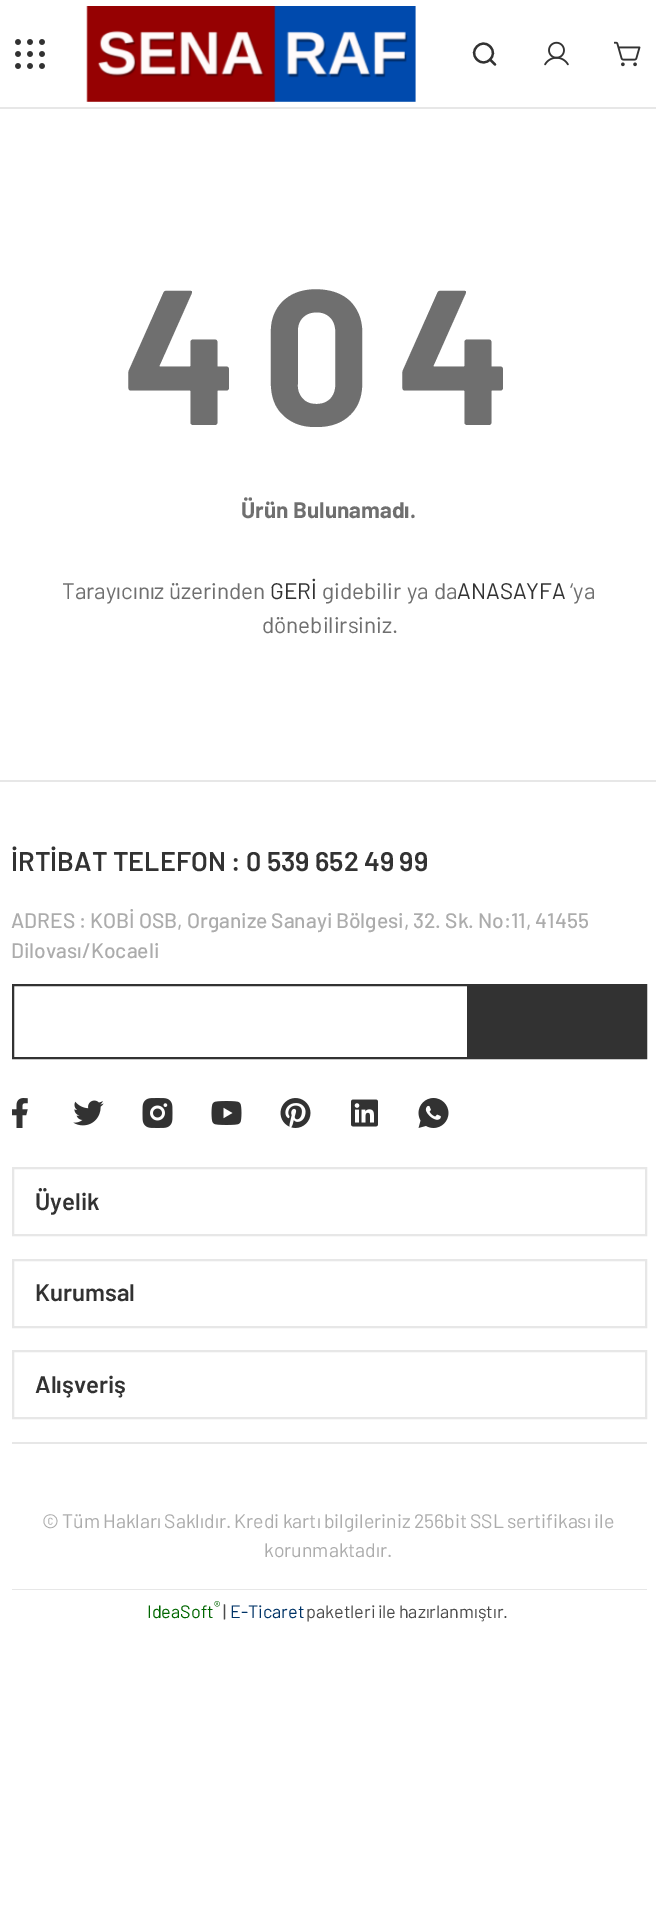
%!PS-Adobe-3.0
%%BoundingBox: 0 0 656 1925
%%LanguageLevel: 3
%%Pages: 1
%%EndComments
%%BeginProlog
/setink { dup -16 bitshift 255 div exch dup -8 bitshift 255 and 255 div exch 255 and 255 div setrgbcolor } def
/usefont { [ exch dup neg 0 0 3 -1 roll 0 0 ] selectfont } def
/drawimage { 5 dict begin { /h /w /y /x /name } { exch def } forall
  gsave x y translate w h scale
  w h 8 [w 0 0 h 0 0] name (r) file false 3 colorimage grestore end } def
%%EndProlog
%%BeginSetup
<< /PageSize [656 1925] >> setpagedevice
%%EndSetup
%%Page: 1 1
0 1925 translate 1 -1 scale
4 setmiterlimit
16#FFFFFF setink
0 0 656 1925 rectfill
16#E7E7E7 setink
0 107 656 2 rectfill
(img1.raw) 15 39 30 30 drawimage
(img2.raw) 86 6 330 96 drawimage
16#323232 setink
2.2 setlinewidth
1 setlinecap
1 setlinejoin
490 46.5 moveto 499 55 485.5 68.5 477 59.5 curveto 468 51 481.5 37.5 490 46.5 curveto 495 64.5 moveto 490 59.5 lineto stroke
(img3.raw) 544 41 25 25 drawimage
(img4.raw) 614 41 27 26 drawimage
/Barlow-Bold 192 usefont
16#6F6F6F setink
122 425 moveto 24 0 (404) ashow
/Barlow-Bold 22.5 usefont
241 518 moveto (Ürün Bulunamadı.) show
/Barlow-Regular 22.5 usefont
62 599 moveto (Tarayıcınız üzerinden) show
16#323232 setink
270 599 moveto (GERİ) show
16#6F6F6F setink
322 599 moveto 1 0 32 (gidebilir ya da) widthshow
16#323232 setink
457 599 moveto (ANASAYFA) show
16#6F6F6F setink
570 599 moveto (‘ya) show
262 633 moveto (dönebilirsiniz.) show
16#E7E7E7 setink
0 780 656 2 rectfill
/Barlow-SemiBold 27 usefont
16#323232 setink
11 871 moveto (İRTİBAT TELEFON : 0 539 652 49 99) show
/Barlow-Medium 21 usefont
16#ACACAC setink
11 928 moveto -0.25 0 32 (ADRES : KOBİ OSB, Organize Sanayi Bölgesi, 32. Sk. No:11, 41455) widthshow
11 958 moveto (Dilovası/Kocaeli) show
16#323232 setink
2 setlinewidth
0 setlinecap
0 setlinejoin
13 985 633 73 rectstroke
467 986 178 71 rectfill
(img5.raw) 12 1098 16 30 drawimage
(img6.raw) 73 1100 31 26 drawimage
(img7.raw) 142 1098 31 30 drawimage
(img8.raw) 211 1101 31 24 drawimage
(img9.raw) 280 1098 31 30 drawimage
(img10.raw) 351 1099 27 28 drawimage
(img11.raw) 418 1098 31 30 drawimage
16#E7E7E7 setink
13 1168 633 67 rectstroke
/Barlow-SemiBold 24 usefont
16#323232 setink
35 1210 moveto (Üyelik) show
16#E7E7E7 setink
13 1260 633 67 rectstroke
16#323232 setink
35 1301 moveto (Kurumsal) show
16#E7E7E7 setink
13 1351 633 67 rectstroke
16#323232 setink
35 1393 moveto (Alışveriş) show
16#E7E7E7 setink
12 1442 635 2 rectfill
12 1589 635 1 rectfill
/Barlow-Regular 19.5 usefont
16#ACACAC setink
42 1528 moveto -0.75 0 32 (© Tüm Hakları Saklıdır. Kredi kartı bilgileriniz 256bit SSL sertifikası ile) widthshow
264 1557 moveto (korunmaktadır.) show
/Barlow-Regular 18 usefont
16#006600 setink
147 1618 moveto (IdeaSoft) show
/Barlow-Regular 14 usefont
214 1611 moveto (®) show
/Barlow-Regular 18 usefont
16#4B4B4B setink
223 1618 moveto (|) show
16#003366 setink
230 1618 moveto (E-Ticaret) show
16#4B4B4B setink
306 1618 moveto -1 0 32 (paketleri ile hazırlanmıştır.) widthshow
showpage
%%EOF
